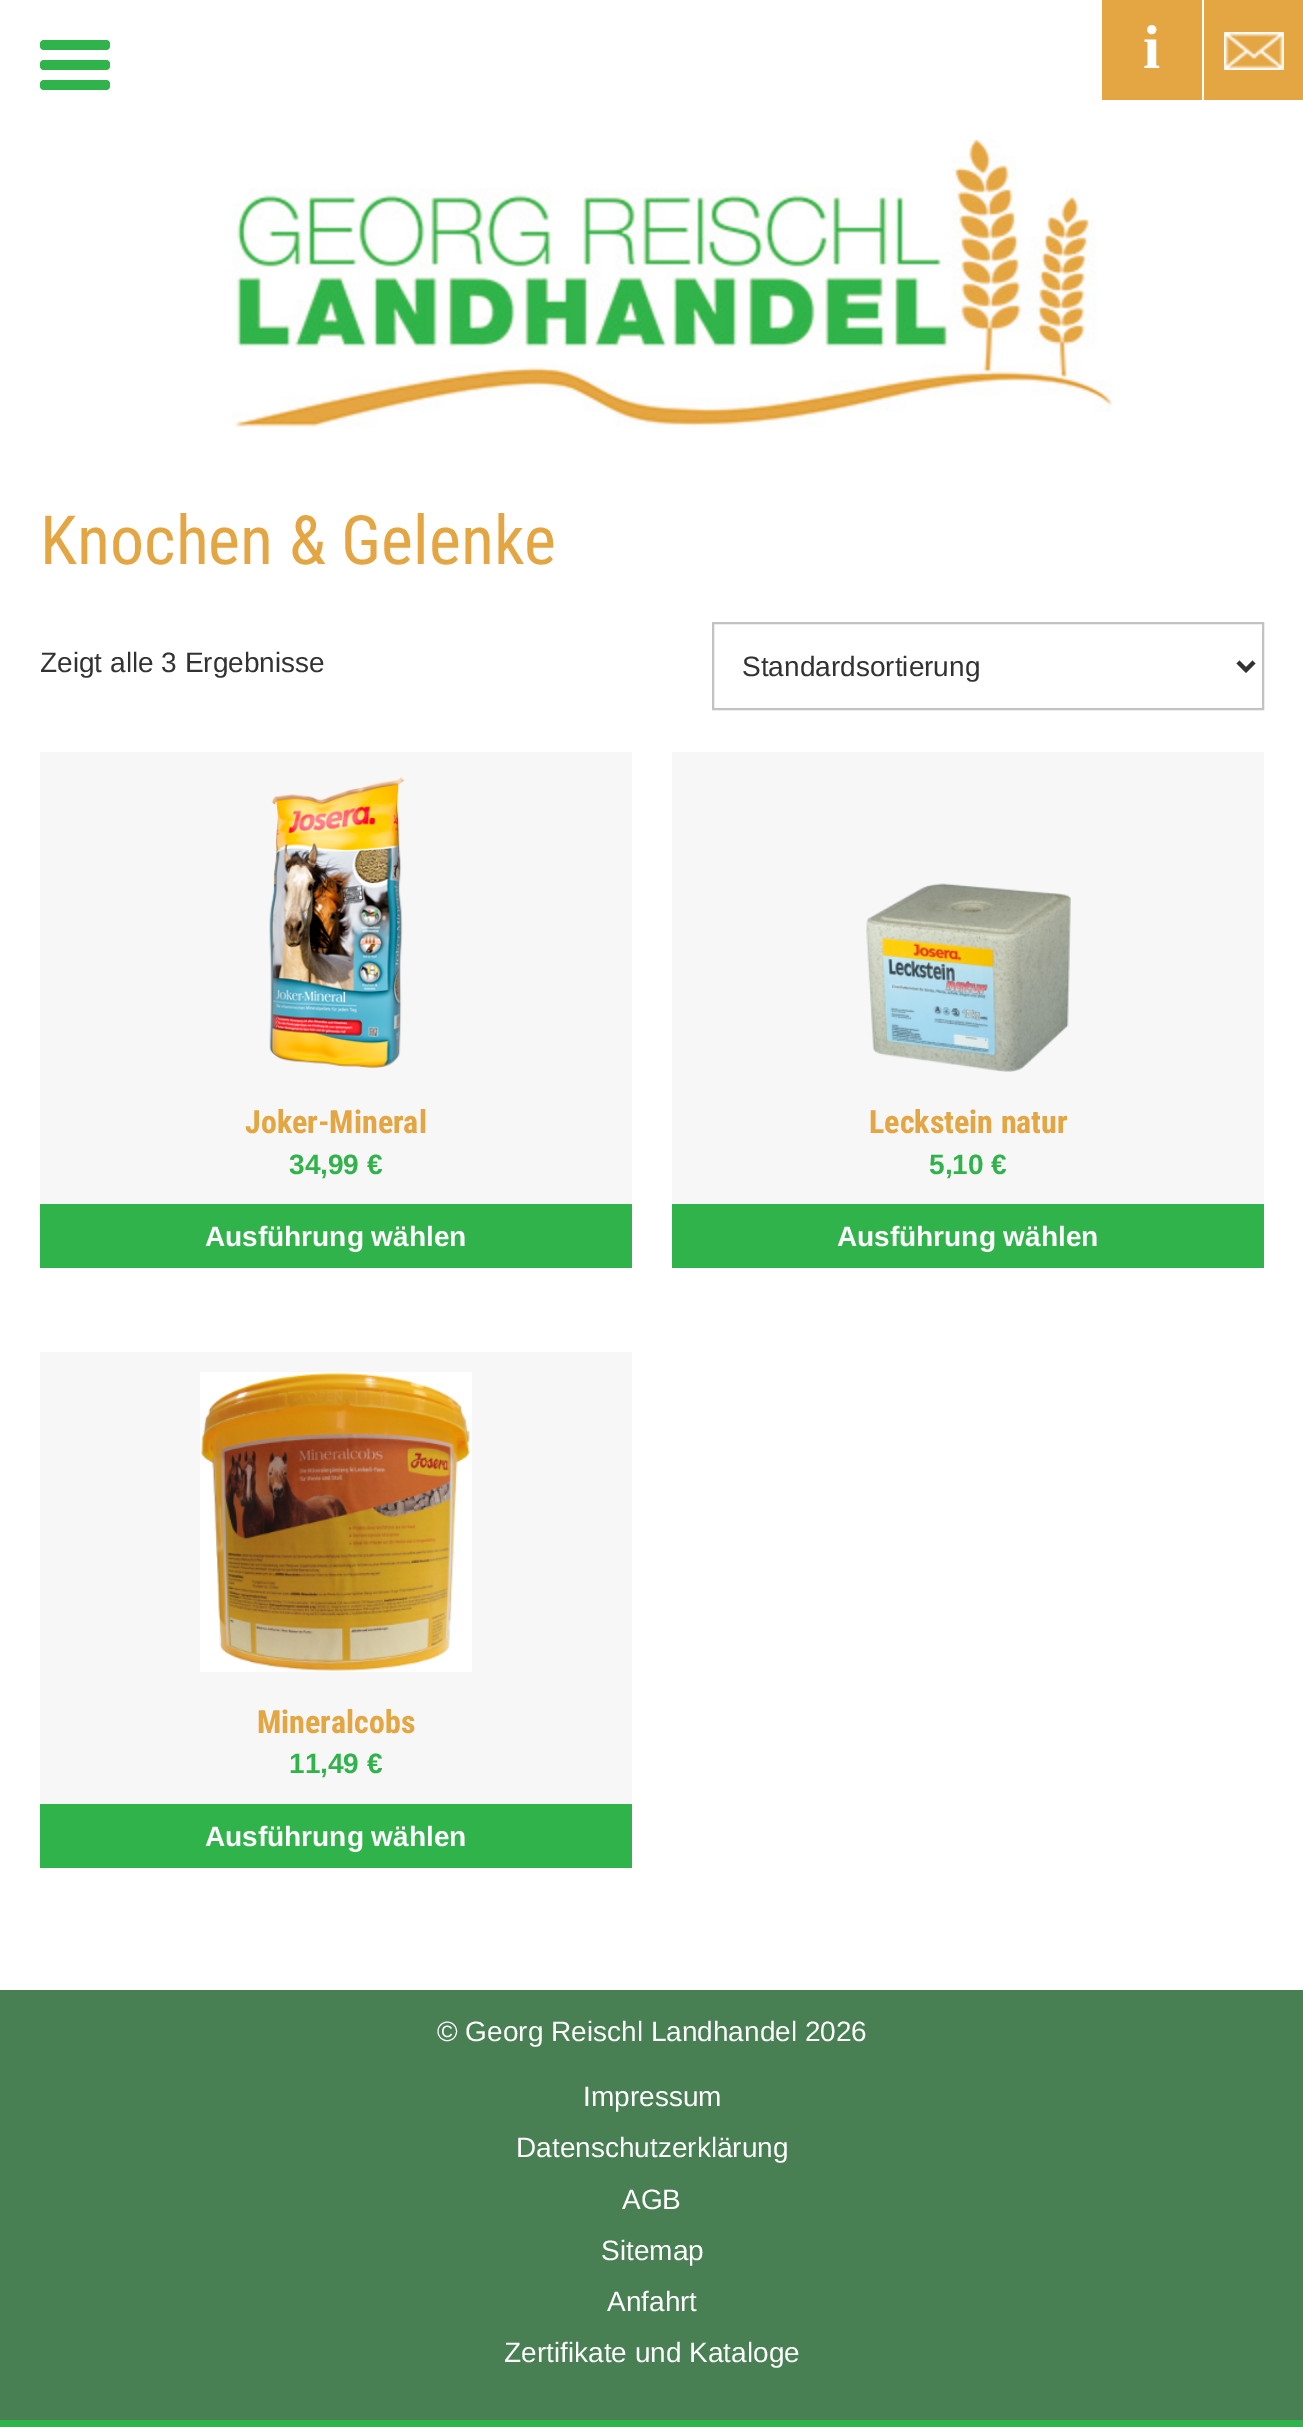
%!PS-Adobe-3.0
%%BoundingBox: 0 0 1303 2427
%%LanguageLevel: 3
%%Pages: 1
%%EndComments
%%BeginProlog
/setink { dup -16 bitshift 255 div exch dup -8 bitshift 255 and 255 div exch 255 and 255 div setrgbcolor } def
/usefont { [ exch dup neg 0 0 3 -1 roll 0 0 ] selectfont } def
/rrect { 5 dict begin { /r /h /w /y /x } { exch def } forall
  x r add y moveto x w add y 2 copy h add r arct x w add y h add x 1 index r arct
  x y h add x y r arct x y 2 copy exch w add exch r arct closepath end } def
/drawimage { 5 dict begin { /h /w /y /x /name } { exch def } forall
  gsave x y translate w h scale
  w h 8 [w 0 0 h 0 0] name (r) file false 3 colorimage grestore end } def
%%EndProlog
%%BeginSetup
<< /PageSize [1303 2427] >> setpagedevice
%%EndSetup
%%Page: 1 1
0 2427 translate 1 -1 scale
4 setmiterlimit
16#FFFFFF setink
0 0 1303 2427 rectfill
16#30B34A setink
40 40 70 10 4 rrect fill
40 60 70 10 4 rrect fill
40 80 70 10 4 rrect fill
(img1.raw) 232 140 881 288 drawimage
16#E4A643 setink
1102 0 201 100 rectfill
16#FFFFFF setink
1202 0 2 100 rectfill
/LiberationSerif-Bold 62 usefont
1143 68 moveto (i) show
(img2.raw) 1224 32 60 38 drawimage
/RobotoCondensed-Regular 68 usefont
16#E4A643 setink
40 564 moveto (Knochen & Gelenke) show
/LiberationSans-Regular 28 usefont
16#323232 setink
40 672 moveto (Zeigt alle 3 Ergebnisse) show
16#C2C2C2 setink
2 setlinewidth
713 623 550 86 rectstroke
16#323232 setink
4 setlinewidth
1238 662 moveto 1246 670 lineto 1254 662 lineto stroke
742 676 moveto (Standardsortierung) show
16#F7F7F7 setink
40 752 592 452 rectfill
(img3.raw) 269 777 136 291 drawimage
/RobotoCondensed-Bold 32 usefont
16#E4A643 setink
245 1133 moveto (Joker-Mineral) show
/LiberationSans-Bold 28 usefont
16#30B34A setink
289 1174 moveto (34,99 €) show
40 1204 592 64 rectfill
16#FFFFFF setink
205 1246 moveto (Ausführung wählen) show
16#F7F7F7 setink
672 752 592 452 rectfill
(img4.raw) 866 883 205 189 drawimage
/RobotoCondensed-Bold 32 usefont
16#E4A643 setink
869 1133 moveto (Leckstein natur) show
/LiberationSans-Bold 28 usefont
16#30B34A setink
929 1174 moveto (5,10 €) show
672 1204 592 64 rectfill
16#FFFFFF setink
837 1246 moveto (Ausführung wählen) show
16#F7F7F7 setink
40 1352 592 452 rectfill
(img5.raw) 200 1372 272 300 drawimage
/RobotoCondensed-Bold 32 usefont
16#E4A643 setink
257 1733 moveto (Mineralcobs) show
/LiberationSans-Bold 28 usefont
16#30B34A setink
289 1773 moveto (11,49 €) show
40 1804 592 64 rectfill
16#FFFFFF setink
205 1846 moveto (Ausführung wählen) show
16#30B34A setink
0 2420 1303 7 rectfill
16#487F53 setink
0 1990 1303 430 rectfill
/LiberationSans-Regular 28 usefont
16#FFFFFF setink
[
    [(© Georg Reischl Landhandel 2026) 437 2041]
    [(Impressum) 583 2106]
    [(Datenschutzerklärung) 516 2157]
    [(AGB) 622 2209]
    [(Sitemap) 601 2260]
    [(Anfahrt) 607 2311]
    [(Zertifikate und Kataloge) 504 2362]
] { aload pop moveto show } forall
showpage
%%EOF
